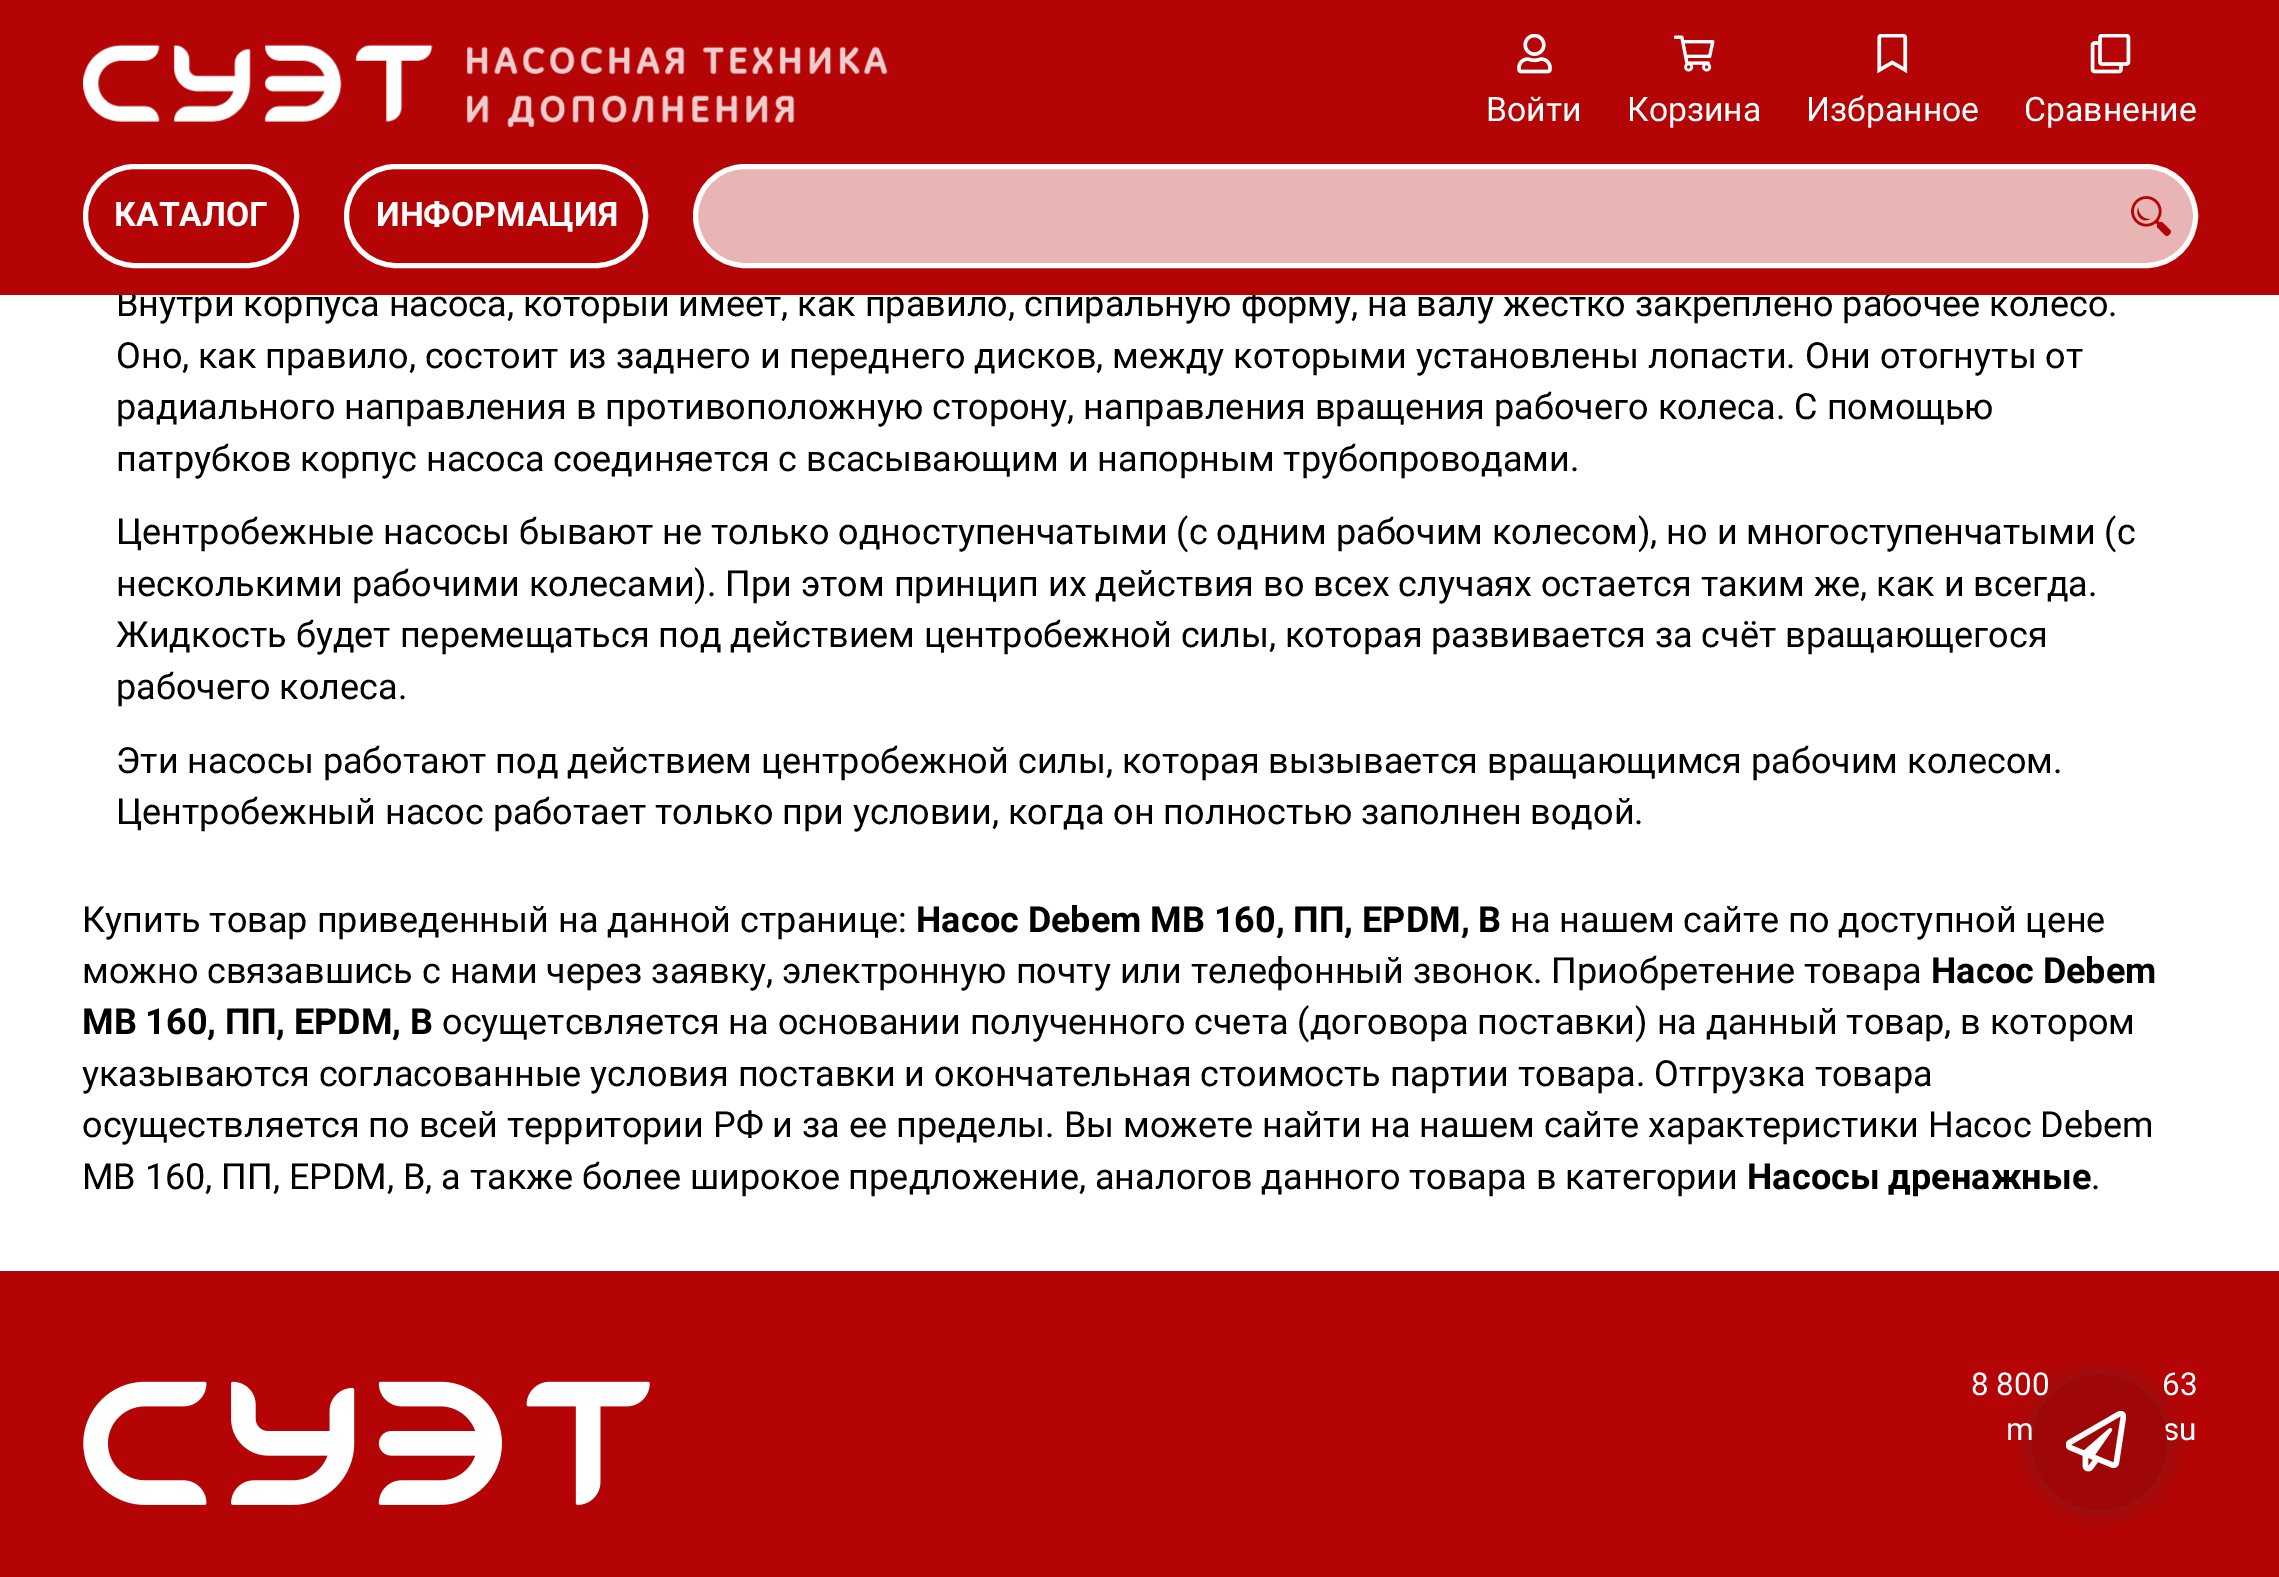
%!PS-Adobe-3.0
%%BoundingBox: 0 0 2279 1577
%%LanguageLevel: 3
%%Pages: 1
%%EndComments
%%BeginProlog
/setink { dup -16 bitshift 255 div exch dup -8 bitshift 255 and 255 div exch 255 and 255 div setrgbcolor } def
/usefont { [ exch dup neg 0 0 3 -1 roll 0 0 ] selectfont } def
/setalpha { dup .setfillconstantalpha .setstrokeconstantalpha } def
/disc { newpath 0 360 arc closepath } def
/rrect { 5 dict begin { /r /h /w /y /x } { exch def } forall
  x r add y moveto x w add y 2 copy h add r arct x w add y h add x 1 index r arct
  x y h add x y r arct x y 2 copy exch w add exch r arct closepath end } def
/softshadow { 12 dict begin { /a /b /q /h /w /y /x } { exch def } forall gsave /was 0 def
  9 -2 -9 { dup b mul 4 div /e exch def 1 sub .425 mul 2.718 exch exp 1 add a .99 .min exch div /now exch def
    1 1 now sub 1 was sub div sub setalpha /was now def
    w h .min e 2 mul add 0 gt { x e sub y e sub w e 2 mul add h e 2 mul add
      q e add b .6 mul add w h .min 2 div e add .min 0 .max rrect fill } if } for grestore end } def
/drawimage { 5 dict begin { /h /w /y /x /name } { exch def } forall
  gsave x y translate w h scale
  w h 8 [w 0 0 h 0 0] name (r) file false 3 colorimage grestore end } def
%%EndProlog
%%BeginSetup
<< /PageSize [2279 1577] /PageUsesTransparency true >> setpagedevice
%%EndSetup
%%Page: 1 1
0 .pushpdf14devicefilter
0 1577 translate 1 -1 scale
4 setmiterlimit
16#FFFFFF setink
0 0 2279 1577 rectfill
/Roboto-Regular 36 usefont
16#000000 setink
116 316 moveto (Внутри корпуса насоса, который имеет, как правило, спиральную форму, на валу жестко закреплено рабочее колесо.) show
16#B50405 setink
0 0 2279 295 rectfill
(img1.raw) 83 44 805 84 drawimage
(img2.raw) 1517 34 35 40 drawimage
/Roboto-Regular 33.75 usefont
16#FFFFFF setink
1486 121 moveto (Войти) show
(img3.raw) 1674 35 41 37 drawimage
1627 121 moveto (Корзина) show
(img4.raw) 1877 34 31 40 drawimage
1806 121 moveto (Избранное) show
(img5.raw) 2090 34 41 40 drawimage
2024 121 moveto (Сравнение) show
5 setlinewidth
85.5 166.5 211 99 49.5 rrect stroke
/Roboto-Bold 33.75 usefont
114 226 moveto (КАТАЛОГ) show
346.5 166.5 299 99 49.5 rrect stroke
376 226 moveto (ИНФОРМАЦИЯ) show
16#E9B4B4 setink
695.5 166.5 1500 99 49.5 rrect gsave fill grestore
16#FFFFFF setink
stroke
(img6.raw) 2131 196 40 40 drawimage
/Roboto-Regular 36 usefont
16#000000 setink
[
    [(Оно, как правило, состоит из заднего и переднего дисков, между которыми установлены лопасти. Они отогнуты от) 116 368]
    [(радиального направления в противоположную сторону, направления вращения рабочего колеса. С помощью) 116 419]
    [(патрубков корпус насоса соединяется с всасывающим и напорным трубопроводами.) 116 471]
    [(Центробежные насосы бывают не только одноступенчатыми \(с одним рабочим колесом\), но и многоступенчатыми \(с) 116 544]
    [(несколькими рабочими колесами\). При этом принцип их действия во всех случаях остается таким же, как и всегда.) 116 596]
    [(Жидкость будет перемещаться под действием центробежной силы, которая развивается за счёт вращающегося) 116 647]
    [(рабочего колеса.) 116 699]
    [(Эти насосы работают под действием центробежной силы, которая вызывается вращающимся рабочим колесом.) 116 773]
    [(Центробежный насос работает только при условии, когда он полностью заполнен водой.) 116 824]
    [(Купить товар приведенный на данной странице:) 82 932]
] { aload pop moveto show } forall
/Roboto-Bold 36 usefont
916 932 moveto (Насос Debem МВ 160, ПП, EPDM, B) show
/Roboto-Regular 36 usefont
1510 932 moveto (на нашем сайте по доступной цене) show
82 983 moveto (можно связавшись с нами через заявку, электронную почту или телефонный звонок. Приобретение товара) show
/Roboto-Bold 36 usefont
1931 983 moveto (Насос Debem) show
82 1034 moveto (МВ 160, ПП, EPDM, B) show
/Roboto-Regular 36 usefont
[
    [(осущетсвляется на основании полученного счета \(договора поставки\) на данный товар, в котором) 442 1034]
    [(указываются согласованные условия поставки и окончательная стоимость партии товара. Отгрузка товара) 82 1086]
    [(осуществляется по всей территории РФ и за ее пределы. Вы можете найти на нашем сайте характеристики Насос Debem) 82 1137]
    [(МВ 160, ПП, EPDM, B, а также более широкое предложение, аналогов данного товара в категории) 82 1189]
] { aload pop moveto show } forall
/Roboto-Bold 36 usefont
1747 1189 moveto (Насосы дренажные) show
/Roboto-Regular 36 usefont
2091 1189 moveto (.) show
16#B50405 setink
0 1271 2279 306 rectfill
16#323232 setink
2032 1375 135 135 67.5 11 0.4 softshadow
/Roboto-Regular 31.5 usefont
16#FFFFFF setink
[
    [(8 800) 1971 1395]
    [(63) 2162 1395]
    [(su) 2163 1440]
] { aload pop moveto show } forall
16#9E0607 setink
2099.5 1442.5 67.5 disc fill
(img7.raw) 2066 1411 60 61 drawimage
(img8.raw) 83 1381 567 124 drawimage
16#FFFFFF setink
2006 1440 moveto (m) show
.poppdf14devicefilter showpage
%%EOF
